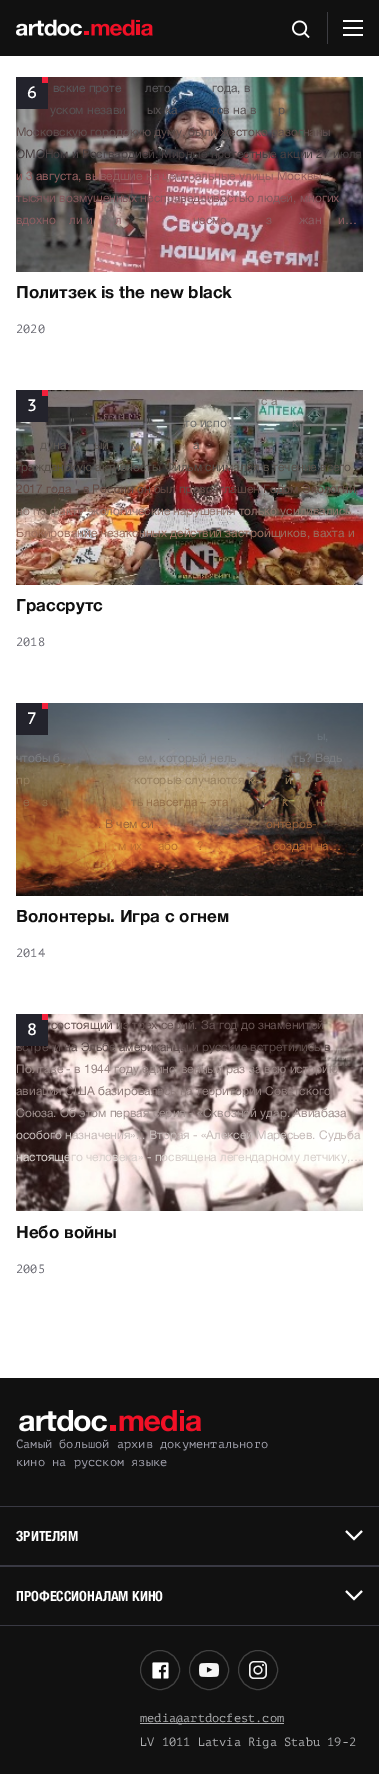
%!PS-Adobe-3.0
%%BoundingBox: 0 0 379 1774
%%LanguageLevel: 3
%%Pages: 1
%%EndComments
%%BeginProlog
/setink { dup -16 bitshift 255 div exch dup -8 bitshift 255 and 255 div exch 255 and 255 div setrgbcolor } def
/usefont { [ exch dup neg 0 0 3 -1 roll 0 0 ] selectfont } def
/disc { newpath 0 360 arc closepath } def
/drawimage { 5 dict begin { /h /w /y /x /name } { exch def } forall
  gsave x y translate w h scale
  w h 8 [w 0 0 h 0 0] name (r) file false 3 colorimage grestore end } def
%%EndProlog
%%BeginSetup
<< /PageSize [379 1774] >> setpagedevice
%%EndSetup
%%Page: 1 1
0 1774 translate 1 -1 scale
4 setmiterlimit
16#FFFFFF setink
0 0 379 1774 rectfill
16#111111 setink
0 0 379 56 rectfill
(img1.raw) 16 19 137 17 drawimage
16#3D3D42 setink
327 12 1 32 rectfill
(img2.raw) 292 20 18 18 drawimage
[
    [343 20 20 2 16#FFFFFF]
    [343 27 20 2 16#FFFFFF]
    [343 34 20 2 16#FFFFFF]
] { aload pop setink rectfill } forall
(img3.raw) 16 77 347 195 drawimage
/HelveticaNeue-Regular 12 usefont
16#575659 setink
[
    [(вские проте) 53 92]
    [(лето) 145 92]
    [(года, в) 212 92]
] { aload pop moveto show } forall
16#585253 setink
[
    [(уском незави) 50 114]
    [(ых ка) 147 114]
    [(тов на в) 211 114]
    [(р) 278 114]
] { aload pop moveto show } forall
16#5F4E4D setink
16 136 moveto (Московскую городскую думу, были жестоко разогнаны) show
16#483F41 setink
16 158 moveto (ОМОНом и Росгвардией. Мирные протестные акции 27 июля) show
16#945E5F setink
16 180 moveto (и 3 августа, выведшие на центральные улицы Москвы) show
16#84585D setink
16 202 moveto (тысячи возмущенных несправедливостью людей, многих) show
16#8B5D61 setink
[
    [(вдохно) 16 224]
    [(ли и) 69 224]
    [(л) 115 224]
    [(, несмо) 186 224]
    [(з) 266 224]
    [(жан) 299 224]
    [(и…) 338 224]
] { aload pop moveto show } forall
16#23232C setink
16 77 32 32 rectfill
16#F3203B setink
42 77 6 6 rectfill
/PTMono-Bold 16 usefont
16#FFFFFF setink
27 98 moveto (6) show
/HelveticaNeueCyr-Bold 17 usefont
16#111111 setink
16 298 moveto (Политзек is the new black) show
/PTMono-Regular 12 usefont
16#676770 setink
16 333 moveto (2020) show
(img4.raw) 16 390 347 195 drawimage
/HelveticaNeue-Regular 12 usefont
16#7D7673 setink
261 405 moveto (с а) show
16#70706E setink
[
    [(") 70 427]
    [(") 146 427]
    [(то испо) 184 427]
    [(к) 292 427]
] { aload pop moveto show } forall
16#5F5954 setink
[
    [(дуна) 40 449]
    [(ый) 94 449]
    [(м) 131 449]
    [(а) 193 449]
] { aload pop moveto show } forall
16#59514A setink
16 471 moveto (гражданскую активность. Фильм снимался в течение всего) show
16#644A44 setink
16 493 moveto (2017 года - в России он был провозглашен Годом Экологии,) show
16#91756C setink
16 515 moveto (но по факту экологические нарушения только усиливались.) show
16#9A6E5F setink
16 537 moveto (Блокирование незаконных действий застройщиков, вахта и) show
16#23232C setink
16 390 32 32 rectfill
16#F3203B setink
42 390 6 6 rectfill
/PTMono-Bold 16 usefont
16#FFFFFF setink
27 411 moveto (3) show
/HelveticaNeueCyr-Bold 17 usefont
16#111111 setink
16 611 moveto (Грассрутс) show
/PTMono-Regular 12 usefont
16#676770 setink
16 646 moveto (2018) show
(img5.raw) 16 703 347 193 drawimage
16#23232C setink
16 703 32 32 rectfill
16#F3203B setink
42 703 6 6 rectfill
/PTMono-Bold 16 usefont
16#FFFFFF setink
27 724 moveto (7) show
/HelveticaNeue-Regular 12 usefont
16#6B757D setink
167 740 moveto (.) show
317 740 moveto (ы,) show
16#7C7D80 setink
[
    [(чтобы б) 16 762]
    [(ем, который нель) 138 762]
    [(ть? Ведь) 293 762]
] { aload pop moveto show } forall
16#967F5E setink
[
    [(пр) 16 784]
    [(которые случаются к) 134 784]
    [(й) 285 784]
    [(,) 314 784]
] { aload pop moveto show } forall
16#956F49 setink
[
    [(е) 23 806]
    [(з) 42 806]
    [(ть навсегда – эта) 131 806]
    [(к) 282 806]
    [(н) 316 806]
] { aload pop moveto show } forall
16#9A623A setink
98 828 moveto (. В чем си) show
266 828 moveto (онтеров-) show
16#BC6D30 setink
[
    [(-) 77 850]
    [(м их) 118 850]
    [(або) 158 850]
    [(?) 197 850]
    [(создан на…) 273 850]
] { aload pop moveto show } forall
/HelveticaNeueCyr-Bold 17 usefont
16#111111 setink
16 922 moveto (Волонтеры. Игра с огнем) show
/PTMono-Regular 12 usefont
16#676770 setink
16 957 moveto (2014) show
(img6.raw) 16 1014 347 197 drawimage
/HelveticaNeue-Regular 12 usefont
16#675452 setink
51 1029 moveto (состоящий из трех серий. За год до знаменитой) show
16#5F4E4D setink
16 1051 moveto (встречи на Эльбе американцы и русские встретились в) show
16#988684 setink
16 1073 moveto (Полтаве - в 1944 году единственный раз за всю историю) show
16#8E7C7A setink
16 1095 moveto (авиация США базировалась на территории Советского) show
16#A0918F setink
16 1117 moveto (Союза. Об этом первая серия - «Сквозной удар. Авиабаза) show
16#C6BBB9 setink
16 1139 moveto (особого назначения»... Вторая - «Алексей Маресьев. Судьба) show
16#D9D1CD setink
16 1161 moveto (настоящего человека» - посвящена легендарному летчику,…) show
16#23232C setink
16 1014 32 32 rectfill
16#F3203B setink
42 1014 6 6 rectfill
/PTMono-Bold 16 usefont
16#FFFFFF setink
27 1035 moveto (8) show
/HelveticaNeueCyr-Bold 17 usefont
16#111111 setink
16 1238 moveto (Небо войны) show
/PTMono-Regular 12 usefont
16#676770 setink
16 1273 moveto (2005) show
16#111111 setink
0 1378 379 396 rectfill
(img7.raw) 19 1410 182 22 drawimage
16#A0A0AC setink
16 1448 moveto (Самый большой архив документального) show
16 1466 moveto (кино на русском языке) show
gsave
0 1506 379 60 rectclip
16#393943 setink
-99 1407 moveto 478 1407 lineto 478 1665 lineto -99 1665 lineto closepath 0 1501 moveto 379 1501 lineto 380 1501 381 1502 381 1503 curveto 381 1563 lineto 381 1564 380 1565 379 1565 curveto 0 1565 lineto -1 1565 -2 1564 -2 1563 curveto -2 1503 lineto -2 1502 -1 1501 0 1501 curveto closepath eofill
-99 1407 moveto 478 1407 lineto 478 1665 lineto -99 1665 lineto closepath 0 1507 moveto 379 1507 lineto 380 1507 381 1508 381 1509 curveto 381 1569 lineto 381 1570 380 1571 379 1571 curveto 0 1571 lineto -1 1571 -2 1570 -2 1569 curveto -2 1509 lineto -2 1508 -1 1507 0 1507 curveto closepath eofill
grestore
/HelveticaNeue-Bold 14 usefont
16#FFFFFF setink
16 1541 moveto (ЗРИТЕЛЯМ) show
2 setlinewidth
362 1531 moveto 354 1539 lineto 346 1531 lineto stroke
gsave
0 1566 379 60 rectclip
16#393943 setink
-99 1467 moveto 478 1467 lineto 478 1725 lineto -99 1725 lineto closepath 0 1561 moveto 379 1561 lineto 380 1561 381 1562 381 1563 curveto 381 1623 lineto 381 1624 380 1625 379 1625 curveto 0 1625 lineto -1 1625 -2 1624 -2 1623 curveto -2 1563 lineto -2 1562 -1 1561 0 1561 curveto closepath eofill
-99 1467 moveto 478 1467 lineto 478 1725 lineto -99 1725 lineto closepath 0 1567 moveto 379 1567 lineto 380 1567 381 1568 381 1569 curveto 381 1629 lineto 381 1630 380 1631 379 1631 curveto 0 1631 lineto -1 1631 -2 1630 -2 1629 curveto -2 1569 lineto -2 1568 -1 1567 0 1567 curveto closepath eofill
grestore
16 1601 moveto (ПРОФЕССИОНАЛАМ КИНО) show
362 1591 moveto 354 1599 lineto 346 1591 lineto stroke
16#414141 setink
1 setlinewidth
160 1670 19.5 disc stroke
(img8.raw) 152 1662 17 17 drawimage
209 1670 19.5 disc stroke
(img9.raw) 199 1663 20 14 drawimage
258 1670 19.5 disc stroke
(img10.raw) 249 1661 18 18 drawimage
16#ADAEB0 setink
140 1723 144 1 rectfill
/PTMono-Regular 12 usefont
140 1722 moveto (media@artdocfest.com) show
140 1746 moveto (LV 1011 Latvia Riga Stabu 19-2) show
showpage
%%EOF
